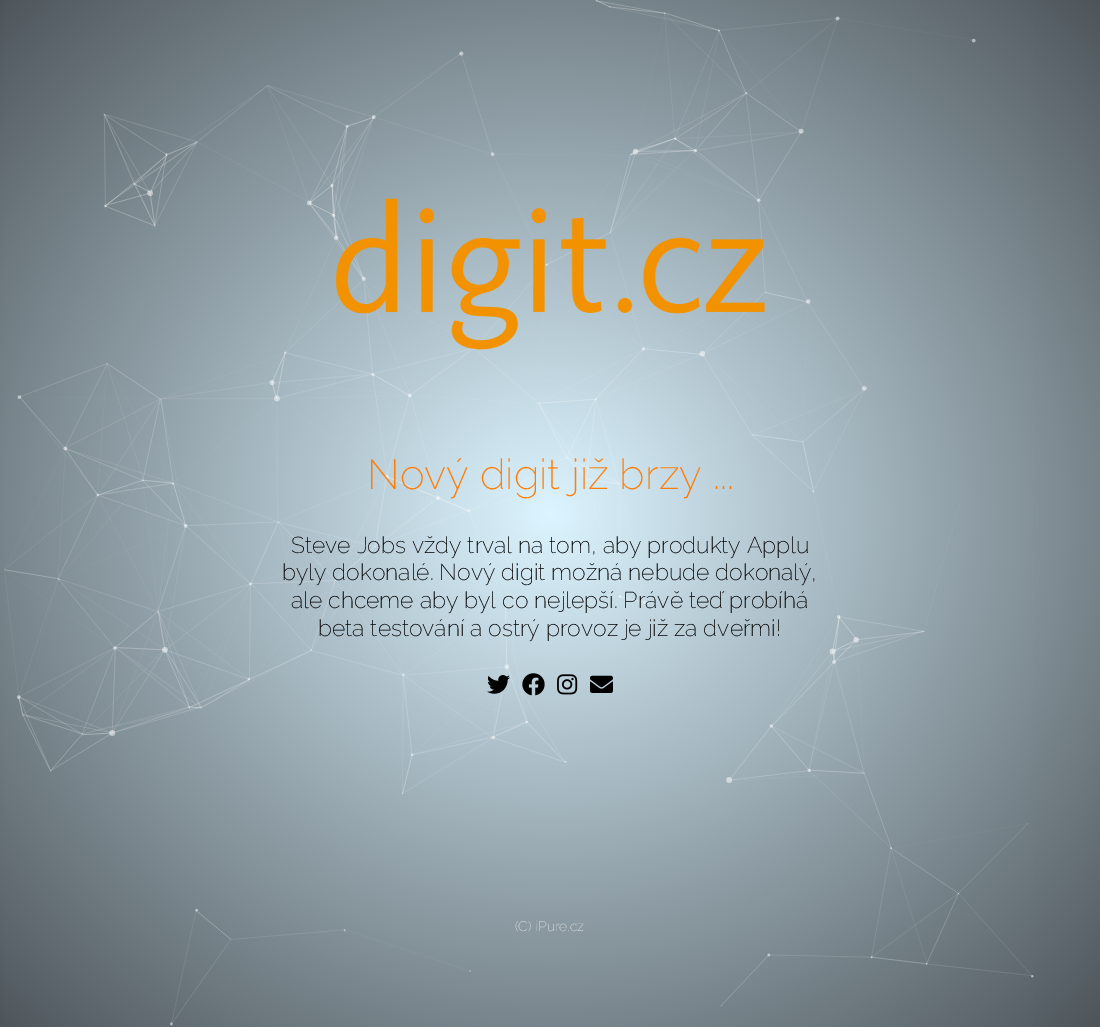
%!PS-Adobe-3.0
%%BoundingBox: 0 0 1100 1027
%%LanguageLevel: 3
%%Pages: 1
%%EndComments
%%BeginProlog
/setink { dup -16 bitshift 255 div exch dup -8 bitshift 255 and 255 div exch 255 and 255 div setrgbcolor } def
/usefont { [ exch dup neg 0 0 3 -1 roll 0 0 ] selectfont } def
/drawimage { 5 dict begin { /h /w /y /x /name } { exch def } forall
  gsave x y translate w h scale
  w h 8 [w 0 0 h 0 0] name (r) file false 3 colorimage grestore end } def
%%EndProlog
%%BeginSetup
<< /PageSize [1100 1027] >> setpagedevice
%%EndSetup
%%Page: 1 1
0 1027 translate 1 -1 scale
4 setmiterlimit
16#FFFFFF setink
0 0 1100 1027 rectfill
gsave 0 0 moveto 1100 0 lineto 1100 1027 lineto 0 1027 lineto closepath clip newpath 550 514 translate 778 726 scale
<< /ShadingType 3 /ColorSpace /DeviceRGB /Coords [0 0 0 0 0 1] /Extend [true true] /Function << /FunctionType 2 /Domain [0 1] /C0 [0.863 0.957 1] /C1 [0.302 0.333 0.353] /N 1 >> >> shfill grestore
(img1.raw) 4 0 1030 1026 drawimage
(img2.raw) 335 198 430 152 drawimage
/Raleway-Thin 42 usefont
16#FF7E08 setink
367 489 moveto (Nový digit již brzy ...) show
/Raleway-Thin 23 usefont
16#000000 setink
[
    [(Steve Jobs vždy trval na tom, aby produkty Applu) 291 553]
    [(byly dokonalé. Nový digit možná nebude dokonalý,) 282 580]
    [(ale chceme aby byl co nejlepší. Právě teď probíhá) 291 608]
    [(beta testování a ostrý provoz je již za dveřmi!) 318 636]
] { aload pop moveto show } forall
(img3.raw) 487 675 23 19 drawimage
(img4.raw) 522 673 23 23 drawimage
(img5.raw) 557 674 21 21 drawimage
(img6.raw) 590 675 23 18 drawimage
/Raleway-Thin 14 usefont
16#DCE1E3 setink
515 931 moveto (\(C\) iPure.cz) show
showpage
%%EOF
